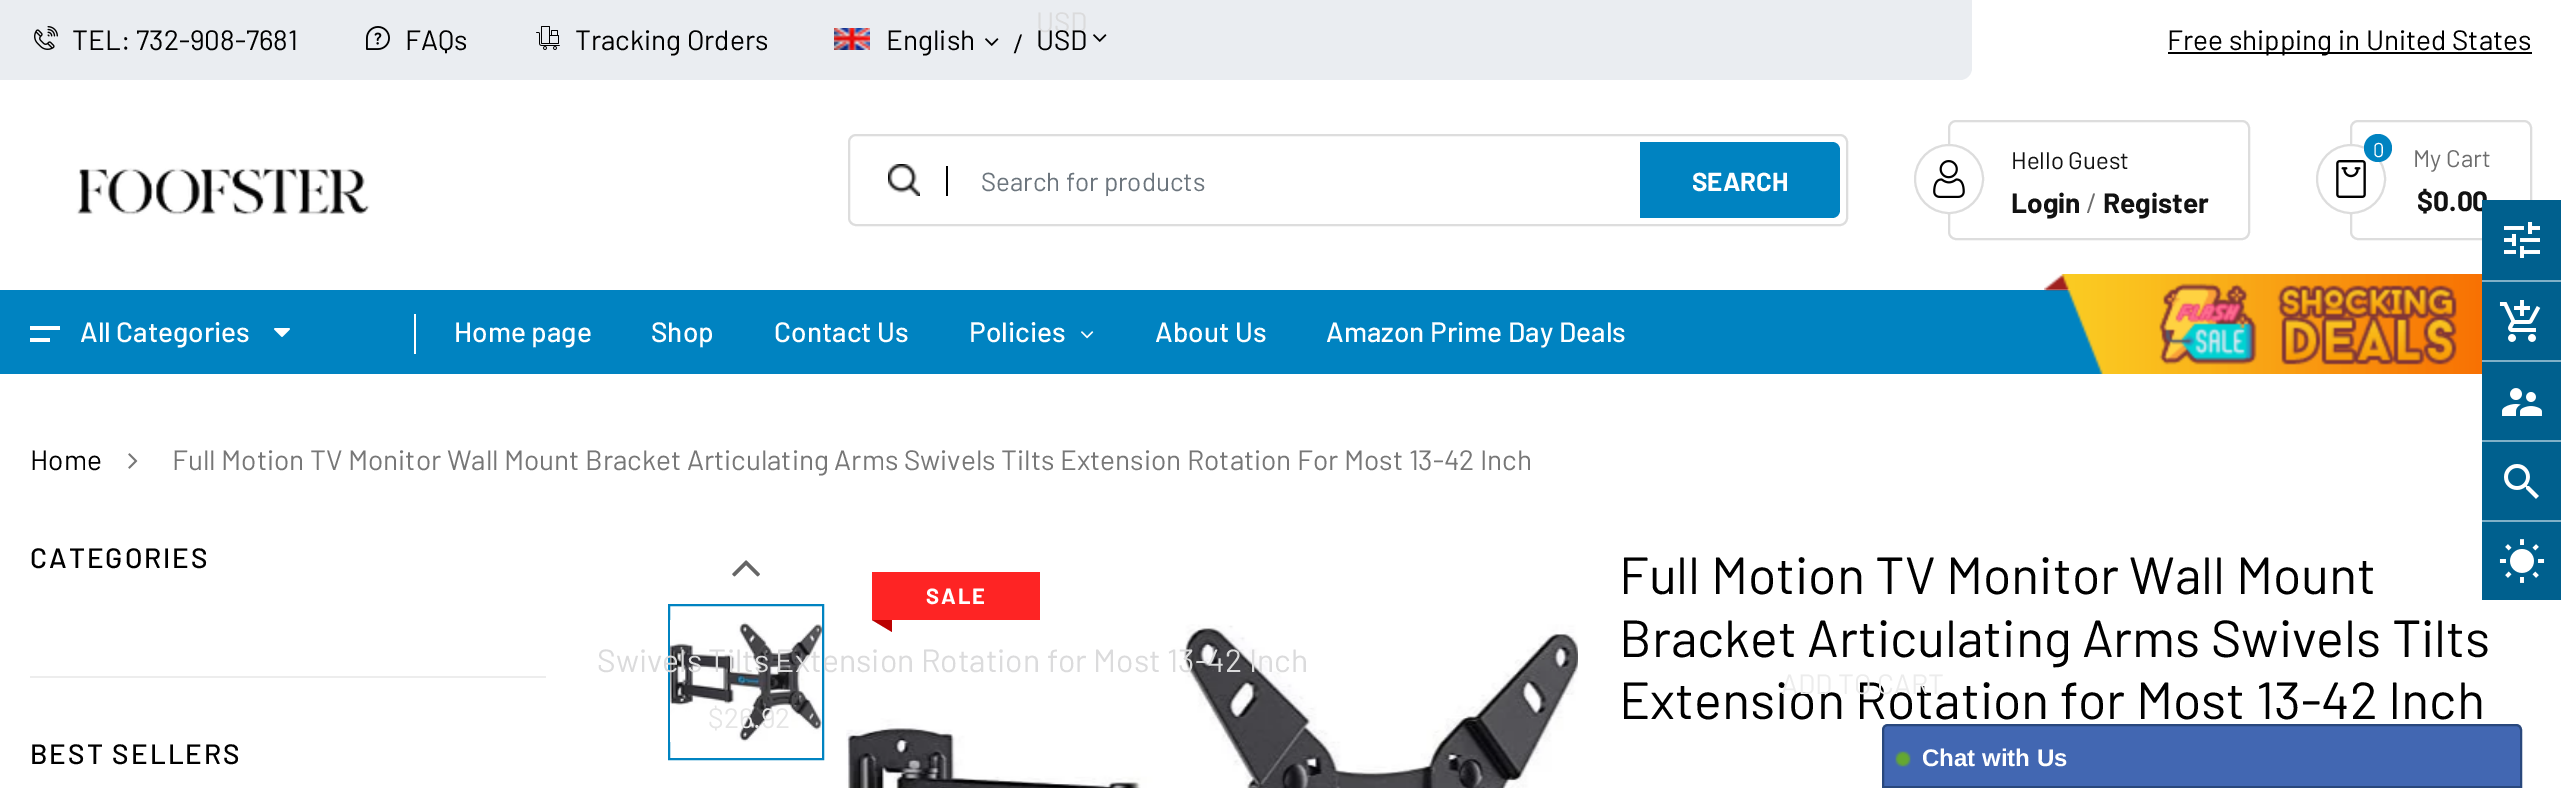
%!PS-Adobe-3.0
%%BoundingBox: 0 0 2561 788
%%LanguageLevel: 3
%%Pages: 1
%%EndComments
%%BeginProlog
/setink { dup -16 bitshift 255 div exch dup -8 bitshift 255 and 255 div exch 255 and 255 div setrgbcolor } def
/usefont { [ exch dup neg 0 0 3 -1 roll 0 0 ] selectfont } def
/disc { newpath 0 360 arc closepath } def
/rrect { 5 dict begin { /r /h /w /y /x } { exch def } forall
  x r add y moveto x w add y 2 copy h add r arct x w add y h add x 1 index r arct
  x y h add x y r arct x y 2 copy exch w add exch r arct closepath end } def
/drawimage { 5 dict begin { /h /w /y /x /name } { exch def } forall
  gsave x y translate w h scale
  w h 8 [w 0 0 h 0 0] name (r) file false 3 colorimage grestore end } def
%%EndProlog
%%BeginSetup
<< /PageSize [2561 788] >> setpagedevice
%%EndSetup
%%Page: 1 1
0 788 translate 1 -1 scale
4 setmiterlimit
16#FFFFFF setink
0 0 2561 788 rectfill
16#EAEDF1 setink
0 0 moveto 1972 0 lineto 1972 68 lineto 1972 74.5 1966.5 80 1960 80 curveto 0 80 lineto closepath fill
(img1.raw) 34 26 24 24 drawimage
/Barlow-Regular 28 usefont
16#000000 setink
72 50 moveto (TEL: 732-908-7681) show
(img2.raw) 366 26 24 24 drawimage
405 50 moveto (FAQs) show
(img3.raw) 536 26 24 24 drawimage
575 50 moveto (Tracking Orders) show
(img4.raw) 834 28 36 22 drawimage
886 50 moveto (English) show
(img5.raw) 985 38 14 8 drawimage
/LiberationSerif-Bold 28 usefont
1014 53 moveto (/) show
/Barlow-Regular 28 usefont
16#DBDBDC setink
1036 32 moveto (USD) show
16#000000 setink
1036 50 moveto (USD) show
(img5.raw) 1093 34 14 8 drawimage
2168 52 364 2 rectfill
2167 50 moveto (Free shipping in United States) show
(img6.raw) 76 167 294 48 drawimage
16#DDDDDD setink
2 setlinewidth
849 135 998 90 7 rrect stroke
(img7.raw) 888 164 32 32 drawimage
16#000000 setink
946 166 2 30 rectfill
/Barlow-Regular 26 usefont
16#6C757D setink
981 191 moveto (Search for products) show
16#0083C1 setink
1640 142 moveto 1832 142 lineto 1836.5 142 1840 145.5 1840 150 curveto 1840 210 lineto 1840 214.5 1836.5 218 1832 218 curveto 1640 218 lineto closepath fill
/Barlow-Bold 26 usefont
16#FFFFFF setink
1692 191 moveto (SEARCH) show
16#DDDDDD setink
1949 121 300 118 7 rrect stroke
16#FFFFFF setink
1949 179 35 disc fill
(img8.raw) 1933 160 32 38 drawimage
16#DDDDDD setink
1949 179 34 disc stroke
/Barlow-Regular 24 usefont
16#121212 setink
2011 169 moveto (Hello Guest) show
/Barlow-Bold 28 usefont
2011 213 moveto (Login) show
/Barlow-Regular 28 usefont
16#6D6D6D setink
2086 213 moveto (/) show
/Barlow-Bold 28 usefont
16#121212 setink
2103 213 moveto (Register) show
16#DDDDDD setink
2351 121 180 118 7 rrect stroke
16#FFFFFF setink
2351 179 35 disc fill
(img9.raw) 2336 160 30 38 drawimage
16#DDDDDD setink
2351 179 34 disc stroke
16#0083C1 setink
2378 148 14 disc fill
/Barlow-Regular 20 usefont
16#FFFFFF setink
2373 157 moveto (0) show
/Barlow-Regular 24 usefont
16#6D6D6D setink
2413 167 moveto (My Cart) show
/Barlow-Bold 28 usefont
16#121212 setink
2417 211 moveto ($0.00) show
16#0083C1 setink
0 290 2434 84 rectfill
16#FFFFFF setink
30 326 30 4 rectfill
/Barlow-Medium 28 usefont
80 342 moveto (All Categories) show
30 338 20 4 rectfill
(img10.raw) 274 328 16 9 drawimage
414 314 2 40 rectfill
[
    [(Home page) 454 342]
    [(Shop) 651 342]
    [(Contact Us) 774 342]
    [(Policies) 969 342]
] { aload pop moveto show } forall
(img11.raw) 1081 331 13 8 drawimage
1155 342 moveto (About Us) show
1326 342 moveto (Amazon Prime Day Deals) show
(img12.raw) 2044 274 438 100 drawimage
/Barlow-Regular 28 usefont
16#000000 setink
30 470 moveto (Home) show
(img13.raw) 128 453 10 16 drawimage
16#777777 setink
172 470 moveto (Full Motion TV Monitor Wall Mount Bracket Articulating Arms Swivels Tilts Extension Rotation For Most 13-42 Inch) show
16#EDEDED setink
30 676 516 2 rectfill
/Barlow-Medium 28 usefont
16#000000 setink
30 568 moveto 2 0 (CATEGORIES) ashow
30 764 moveto 2 0 (BEST SELLERS) ashow
(img14.raw) 732 560 28 17 drawimage
16#0083C1 setink
669 605 154 154 rectstroke
(img15.raw) 670 620 152 122 drawimage
16#FE2424 setink
872 572 168 48 rectfill
/Barlow-Bold 22 usefont
16#FFFFFF setink
926 604 moveto 2 0 (SALE) ashow
(img16.raw) 846 624 732 164 drawimage
16#BB0101 setink
872 620 moveto 892 620 lineto 892 632 lineto closepath fill
/Barlow-Regular 52 usefont
16#000000 setink
[
    [(Full Motion TV Monitor Wall Mount) 1619 594]
    [(Bracket Articulating Arms Swivels Tilts) 1619 657]
    [(Extension Rotation for Most 13-42 Inch) 1619 719]
] { aload pop moveto show } forall
/Barlow-Regular 32 usefont
16#DBDBDC setink
597 672 moveto (Swivels Tilts Extension Rotation for Most 13-42 Inch) show
/Barlow-Regular 28 usefont
16#E5E5E5 setink
708 728 moveto ($26.92) show
16#ECECEC setink
1781 694 moveto (ADD TO CART) show
16#00608E setink
2482 200 79 80 rectfill
(img17.raw) 2504 222 36 36 drawimage
2482 282 79 78 rectfill
16#80B0C7 setink
2482 280 79 2 rectfill
(img18.raw) 2499 300 42 42 drawimage
16#00608E setink
2482 362 79 78 rectfill
16#80B0C7 setink
2482 360 79 2 rectfill
(img19.raw) 2502 388 40 28 drawimage
16#00608E setink
2482 442 79 78 rectfill
16#80B0C7 setink
2482 440 79 2 rectfill
(img20.raw) 2504 464 35 35 drawimage
16#00608E setink
2482 522 79 78 rectfill
16#80B0C7 setink
2482 520 79 2 rectfill
(img21.raw) 2499 539 46 44 drawimage
16#4267B2 setink
1888 725 moveto 2516 725 lineto 2519 725 2521 727 2521 730 curveto 2521 787 lineto 1883 787 lineto 1883 730 lineto 1883 727 1885 725 1888 725 curveto closepath gsave fill grestore
16#29487D setink
stroke
(img22.raw) 1895 751 16 16 drawimage
/LiberationSans-Bold 24 usefont
16#FFFFFF setink
1922 766 moveto (Chat with Us) show
showpage
%%EOF
